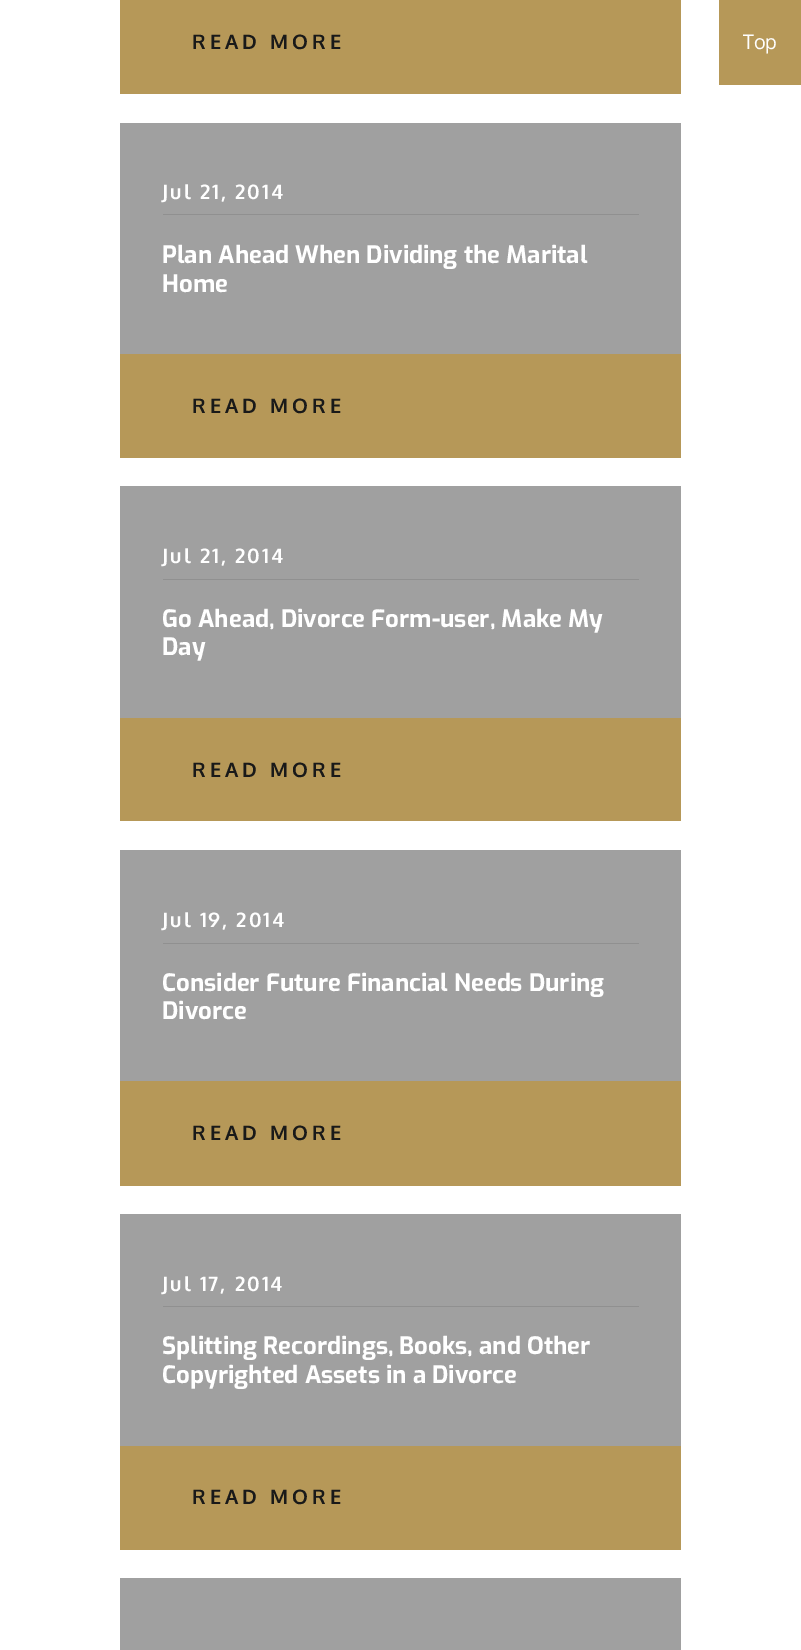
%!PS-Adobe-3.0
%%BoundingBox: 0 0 801 1650
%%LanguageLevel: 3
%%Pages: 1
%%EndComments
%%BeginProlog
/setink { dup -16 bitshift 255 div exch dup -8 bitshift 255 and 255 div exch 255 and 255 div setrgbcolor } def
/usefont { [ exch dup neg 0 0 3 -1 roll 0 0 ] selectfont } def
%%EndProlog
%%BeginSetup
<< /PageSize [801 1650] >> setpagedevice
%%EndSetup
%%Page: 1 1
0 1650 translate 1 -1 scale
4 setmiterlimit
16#FFFFFF setink
0 0 801 1650 rectfill
16#B69858 setink
120 0 561 94 rectfill
/Oxygen-Bold 20 usefont
16#191919 setink
192 49 moveto 4 0 (READ MORE) ashow
16#A0A0A0 setink
120 123 561 231 rectfill
16#909090 setink
163 214 476 1 rectfill
16#FFFFFF setink
162 199 moveto 2 0 (Jul 21, 2014) ashow
/Exo-Bold 24 usefont
162 263 moveto (Plan Ahead When Dividing the Marital) show
162 292 moveto (Home) show
16#B69858 setink
120 354 561 104 rectfill
/Oxygen-Bold 20 usefont
16#191919 setink
192 413 moveto 4 0 (READ MORE) ashow
16#A0A0A0 setink
120 486 561 232 rectfill
16#909090 setink
163 579 476 1 rectfill
16#FFFFFF setink
162 563 moveto 2 0 (Jul 21, 2014) ashow
/Exo-Bold 24 usefont
162 627 moveto (Go Ahead, Divorce Form-user, Make My) show
162 655 moveto (Day) show
16#B69858 setink
120 718 561 103 rectfill
/Oxygen-Bold 20 usefont
16#191919 setink
192 777 moveto 4 0 (READ MORE) ashow
16#A0A0A0 setink
120 850 561 231 rectfill
16#909090 setink
163 943 476 1 rectfill
16#FFFFFF setink
162 927 moveto 2 0 (Jul 19, 2014) ashow
/Exo-Bold 24 usefont
162 991 moveto (Consider Future Financial Needs During) show
162 1019 moveto (Divorce) show
16#B69858 setink
120 1081 561 105 rectfill
/Oxygen-Bold 20 usefont
16#191919 setink
192 1140 moveto 4 0 (READ MORE) ashow
16#A0A0A0 setink
120 1214 561 232 rectfill
16#909090 setink
163 1306 476 1 rectfill
16#FFFFFF setink
162 1291 moveto 2 0 (Jul 17, 2014) ashow
/Exo-Bold 24 usefont
162 1354 moveto (Splitting Recordings, Books, and Other) show
162 1383 moveto (Copyrighted Assets in a Divorce) show
16#B69858 setink
120 1446 561 104 rectfill
/Oxygen-Bold 20 usefont
16#191919 setink
192 1504 moveto 4 0 (READ MORE) ashow
16#A0A0A0 setink
120 1578 561 72 rectfill
16#B69858 setink
719 0 82 85 rectfill
/Oxygen-Regular 20 usefont
16#FFFFFF setink
743 49 moveto (Top) show
showpage
%%EOF
